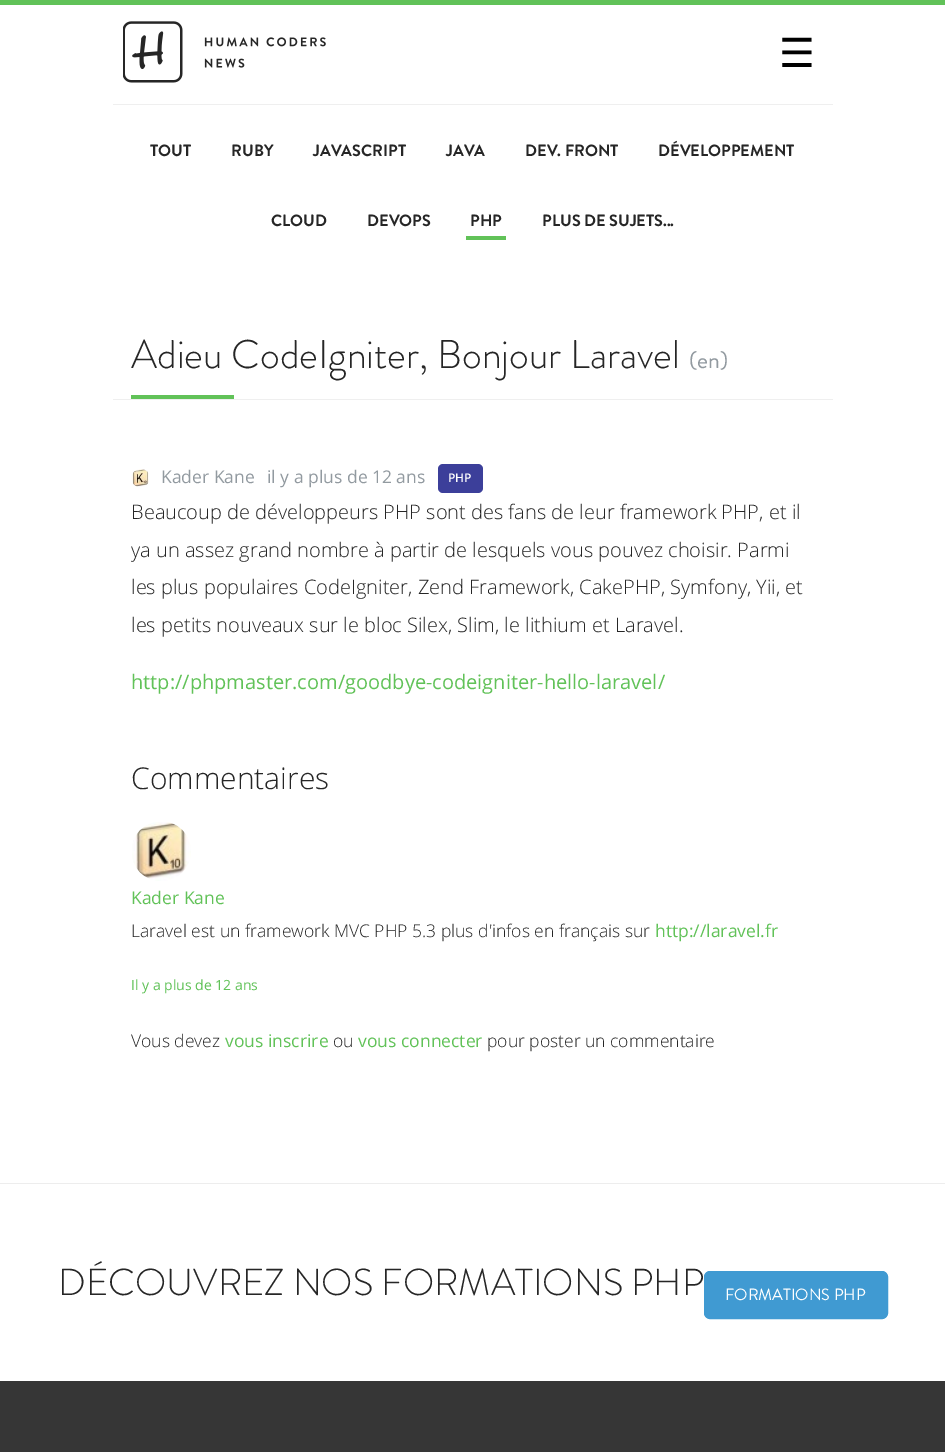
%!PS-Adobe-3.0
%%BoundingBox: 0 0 945 1452
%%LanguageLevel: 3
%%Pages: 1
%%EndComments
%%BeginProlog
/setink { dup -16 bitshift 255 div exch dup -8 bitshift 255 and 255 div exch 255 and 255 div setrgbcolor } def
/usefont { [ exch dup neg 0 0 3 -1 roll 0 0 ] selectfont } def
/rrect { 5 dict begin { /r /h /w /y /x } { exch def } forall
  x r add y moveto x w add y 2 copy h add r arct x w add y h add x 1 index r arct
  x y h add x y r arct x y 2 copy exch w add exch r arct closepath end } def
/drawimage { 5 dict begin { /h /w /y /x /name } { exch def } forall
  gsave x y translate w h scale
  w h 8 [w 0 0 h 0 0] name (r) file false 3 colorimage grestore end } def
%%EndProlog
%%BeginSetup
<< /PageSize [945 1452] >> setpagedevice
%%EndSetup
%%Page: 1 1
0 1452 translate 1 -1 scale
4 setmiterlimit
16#FFFFFF setink
0 0 945 1452 rectfill
16#61C258 setink
0 0 945 5 rectfill
16#EFEFEF setink
113 104 720 1 rectfill
(img1.raw) 123 21 203 62 drawimage
/DejaVuSans-Regular 40 usefont
16#000000 setink
779 67 moveto (☰) show
/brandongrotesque-Bold 16.25 usefont
16#262626 setink
[
    [(TOUT) 150 156]
    [(RUBY) 231 156]
    [(JAVASCRIPT) 313 156]
    [(JAVA) 446 156]
    [(DEV. FRONT) 525 156]
    [(DÉVELOPPEMENT) 658 156]
    [(CLOUD) 271 226]
    [(DEVOPS) 367 226]
    [(PHP) 470 226]
] { aload pop moveto show } forall
16#61C258 setink
466 236 40 4 rectfill
16#262626 setink
542 226 moveto (PLUS DE SUJETS...) show
/brandongrotesque-Light 40 usefont
131 368 moveto (Adieu CodeIgniter, Bonjour Laravel) show
/brandongrotesque-Regular 24 usefont
16#929AA0 setink
689 368 moveto (\(en\)) show
16#61C258 setink
131 395 103 4 rectfill
16#EFEFEF setink
113 399 720 1 rectfill
(img2.raw) 131 469 18 18 drawimage
/OpenSans-Regular 17.5 usefont
16#929AA0 setink
161 483 moveto (Kader Kane) show
267 483 moveto (il y a plus de 12 ans) show
16#3C3F9A setink
438 464 45 29 5 rrect fill
/OpenSans-SemiBold 12 usefont
16#FFFFFF setink
448 482 moveto (PHP) show
/OpenSans-Light 20 usefont
16#262626 setink
[
    [(Beaucoup de développeurs PHP sont des fans de leur framework PHP, et il) 131 519]
    [(ya un assez grand nombre à partir de lesquels vous pouvez choisir. Parmi) 131 557]
    [(les plus populaires CodeIgniter, Zend Framework, CakePHP, Symfony, Yii, et) 131 594]
    [(les petits nouveaux sur le bloc Silex, Slim, le lithium et Laravel.) 131 632]
] { aload pop moveto show } forall
/OpenSans-Regular 20 usefont
16#61C258 setink
131 689 moveto (http://phpmaster.com/goodbye-codeigniter-hello-laravel/) show
/OpenSans-Light 30 usefont
16#262626 setink
131 789 moveto (Commentaires) show
(img3.raw) 132 822 59 59 drawimage
/OpenSans-Regular 17.5 usefont
16#61C258 setink
131 904 moveto (Kader Kane) show
/OpenSans-Light 17.5 usefont
16#262626 setink
131 937 moveto (Laravel est un framework MVC PHP 5.3 plus d'infos en français sur) show
/OpenSans-Regular 17.5 usefont
16#61C258 setink
655 937 moveto (http://laravel.fr) show
/OpenSans-Regular 14 usefont
131 990 moveto (Il y a plus de 12 ans) show
/OpenSans-Light 17.5 usefont
16#262626 setink
131 1047 moveto (Vous devez) show
/OpenSans-Regular 17.5 usefont
16#61C258 setink
225 1047 moveto (vous inscrire) show
/OpenSans-Light 17.5 usefont
16#262626 setink
333 1047 moveto (ou) show
/OpenSans-Regular 17.5 usefont
16#61C258 setink
358 1047 moveto (vous connecter) show
/OpenSans-Light 17.5 usefont
16#262626 setink
487 1047 moveto (pour poster un commentaire) show
16#EDEDED setink
0 1183 945 1 rectfill
/brandongrotesque-Light 37.5 usefont
16#262626 setink
58 1295 moveto (DÉCOUVREZ NOS FORMATIONS PHP) show
16#409AD2 setink
704.5 1271.5 183 47 5.5 rrect gsave fill grestore
stroke
/brandongrotesque-Regular 16.25 usefont
16#FFFFFF setink
725 1300 moveto (FORMATIONS PHP) show
16#363636 setink
0 1381 945 71 rectfill
showpage
%%EOF
